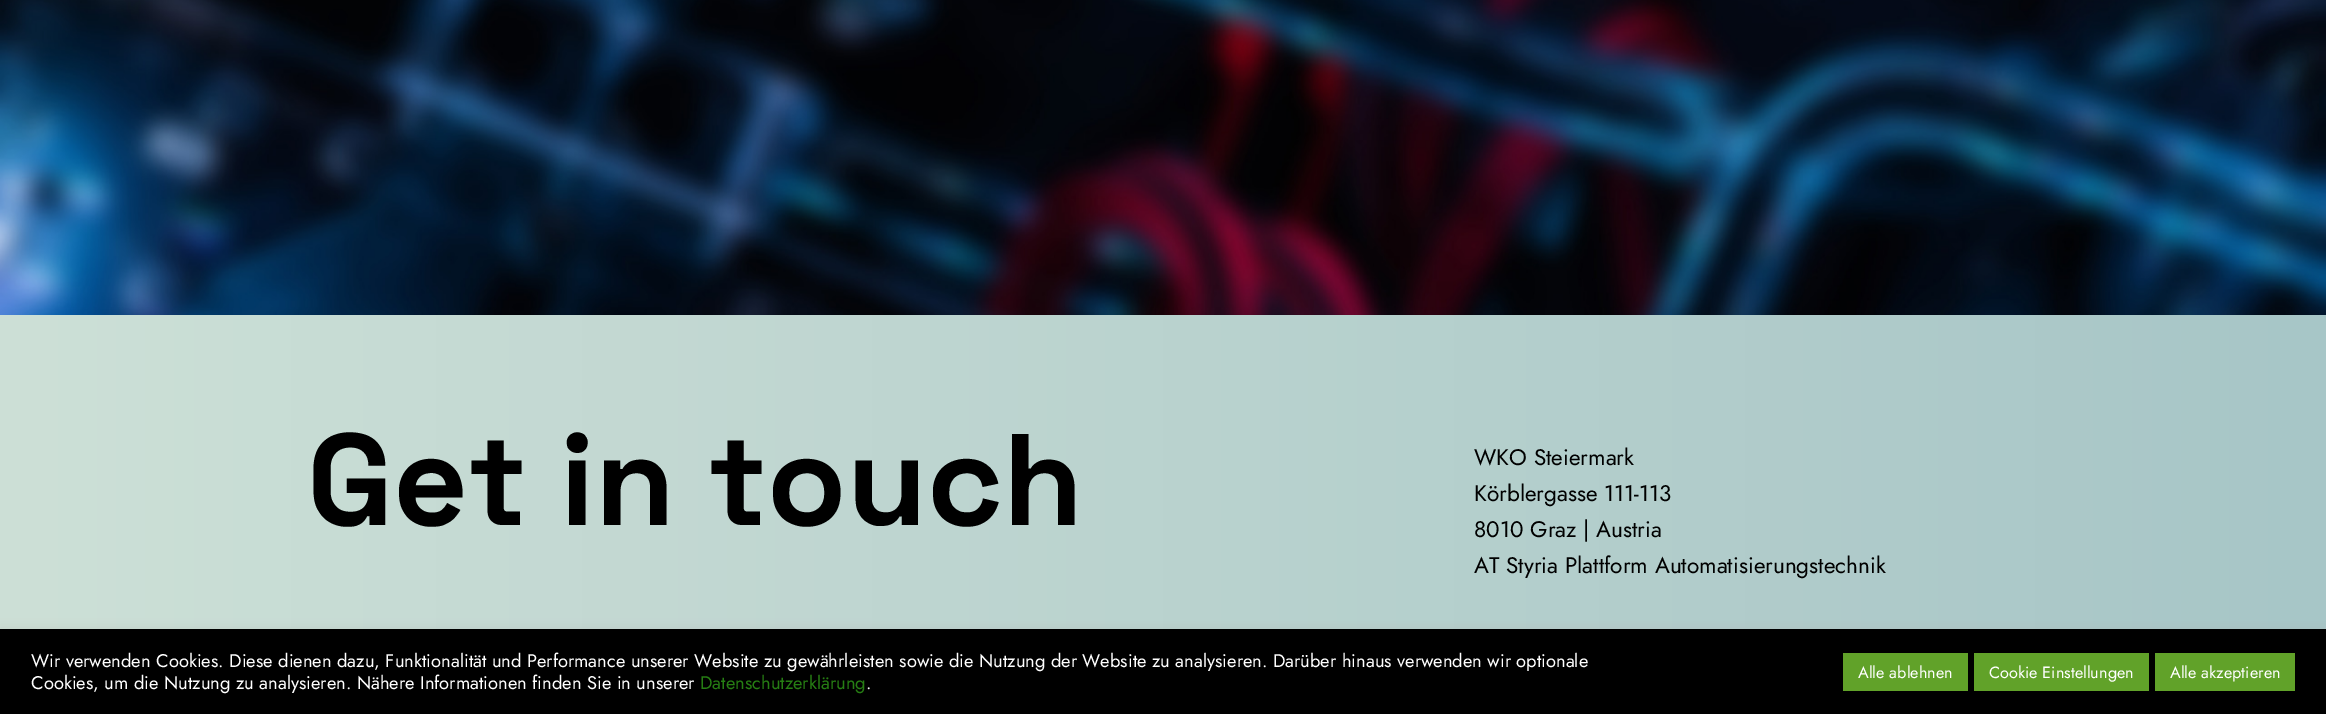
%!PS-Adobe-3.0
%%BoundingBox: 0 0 2326 714
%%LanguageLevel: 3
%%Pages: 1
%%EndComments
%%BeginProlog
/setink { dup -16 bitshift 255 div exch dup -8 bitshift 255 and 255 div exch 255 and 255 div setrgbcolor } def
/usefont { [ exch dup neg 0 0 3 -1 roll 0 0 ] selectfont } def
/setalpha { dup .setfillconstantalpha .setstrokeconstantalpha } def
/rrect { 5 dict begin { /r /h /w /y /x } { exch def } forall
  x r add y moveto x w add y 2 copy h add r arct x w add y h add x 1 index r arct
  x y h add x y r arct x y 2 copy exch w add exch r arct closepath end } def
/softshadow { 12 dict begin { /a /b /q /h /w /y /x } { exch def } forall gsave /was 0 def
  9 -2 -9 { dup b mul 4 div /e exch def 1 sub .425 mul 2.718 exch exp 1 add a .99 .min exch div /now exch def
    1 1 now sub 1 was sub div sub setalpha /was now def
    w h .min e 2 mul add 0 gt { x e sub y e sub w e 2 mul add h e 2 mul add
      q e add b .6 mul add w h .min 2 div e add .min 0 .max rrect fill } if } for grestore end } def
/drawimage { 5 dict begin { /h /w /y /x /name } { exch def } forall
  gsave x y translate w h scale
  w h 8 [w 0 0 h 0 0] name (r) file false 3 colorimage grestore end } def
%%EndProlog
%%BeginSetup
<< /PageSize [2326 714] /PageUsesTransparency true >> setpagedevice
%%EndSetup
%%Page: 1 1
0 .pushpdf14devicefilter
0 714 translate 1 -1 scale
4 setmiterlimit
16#FFFFFF setink
0 0 2326 714 rectfill
(img1.raw) 0 0 2326 315 drawimage
gsave 0 315 moveto 2326 315 lineto 2326 629 lineto 0 629 lineto closepath clip newpath
<< /ShadingType 2 /ColorSpace /DeviceRGB /Coords [0 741 2326 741] /Extend [true true] /Function << /FunctionType 2 /Domain [0 1] /C0 [0.804 0.878 0.843] /C1 [0.655 0.776 0.78] /N 1 >> >> shfill grestore
/SpaceGrotesk-Light 130 usefont
16#000000 setink
307 525 moveto (Get in touch) show
/Jost-Regular 22.5 usefont
[
    [(WKO Steiermark) 1474 465]
    [(Körblergasse 111-113) 1474 501]
    [(8010 Graz | Austria) 1474 537]
    [(AT Styria Plattform Automatisierungstechnik) 1474 573]
] { aload pop moveto show } forall
16#ACABAB setink
0 628 2326 86 0 6 0.3 softshadow
16#000000 setink
0 629 2326 85 rectfill
/Jost-Regular 18.33 usefont
16#FFFFFF setink
31 667 moveto (Wir verwenden Cookies. Diese dienen dazu, Funktionalität und Performance unserer Website zu gewährleisten sowie die Nutzung der Website zu analysieren. Darüber hinaus verwenden wir optionale) show
31 689 moveto (Cookies, um die Nutzung zu analysieren. Nähere Informationen finden Sie in unserer) show
16#267E13 setink
700 689 moveto (Datenschutzerklärung) show
16#FFFFFF setink
866 689 moveto (.) show
16#61A229 setink
1843 653 125 38 rectfill
/Jost-Regular 16.25 usefont
16#FFFFFF setink
1858 678 moveto (Alle ablehnen) show
16#61A229 setink
1974 653 175 38 rectfill
16#FFFFFF setink
1989 678 moveto (Cookie Einstellungen) show
16#61A229 setink
2155 653 140 38 rectfill
16#FFFFFF setink
2170 678 moveto (Alle akzeptieren) show
.poppdf14devicefilter showpage
%%EOF
